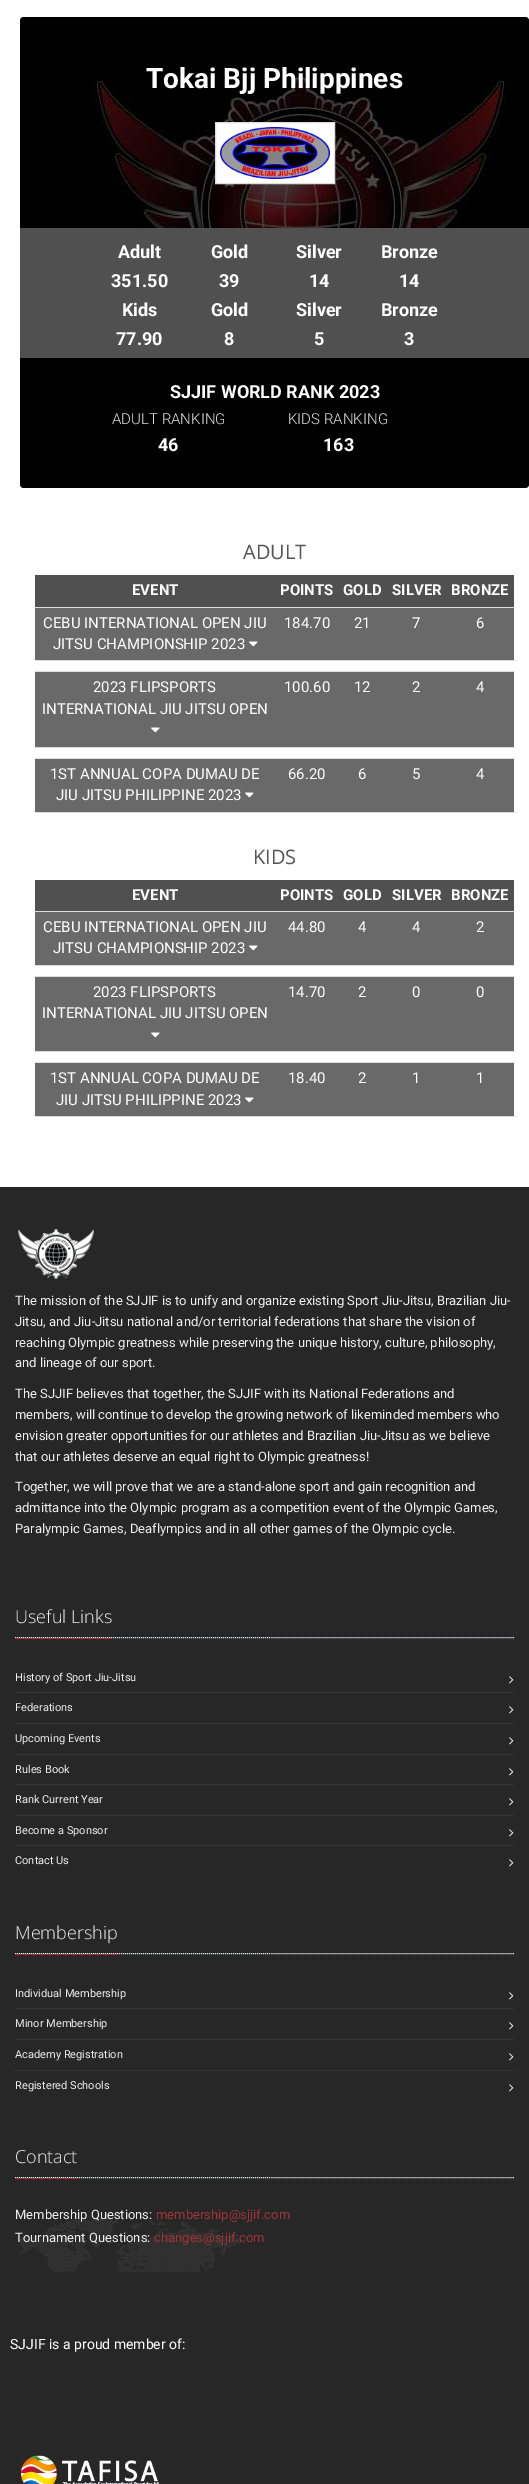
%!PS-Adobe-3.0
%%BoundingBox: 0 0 529 2484
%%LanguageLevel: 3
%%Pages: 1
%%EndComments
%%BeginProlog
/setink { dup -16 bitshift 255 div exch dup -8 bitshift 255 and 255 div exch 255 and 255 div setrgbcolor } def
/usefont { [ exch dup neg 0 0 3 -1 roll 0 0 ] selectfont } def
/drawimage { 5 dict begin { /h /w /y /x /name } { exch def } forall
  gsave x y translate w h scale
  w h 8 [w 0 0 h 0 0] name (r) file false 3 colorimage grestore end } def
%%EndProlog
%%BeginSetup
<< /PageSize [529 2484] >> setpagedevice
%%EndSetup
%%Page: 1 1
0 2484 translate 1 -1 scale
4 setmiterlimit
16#FFFFFF setink
0 0 529 2484 rectfill
(img1.raw) 20 17 509 471 drawimage
/Roboto-Bold 28 usefont
146 88 moveto (Tokai Bjj Philippines) show
215.5 122.5 moveto 334.5 122.5 lineto 334.5 183.5 lineto 215.5 183.5 lineto closepath gsave fill grestore
16#DDDDDD setink
stroke
(img2.raw) 220 127 110 52 drawimage
16#505050 setink
20 228 509 130 rectfill
/Roboto-Bold 18 usefont
16#FFFFFF setink
[
    [(Adult) 118 258]
    [(351.50) 111 287]
    [(Gold) 211 258]
    [(39) 219 287]
    [(Silver) 296 258]
    [(14) 309 287]
    [(Bronze) 381 258]
    [(14) 399 287]
    [(Kids) 122 316]
    [(77.90) 116 345]
    [(Gold) 211 316]
    [(8) 224 345]
    [(Silver) 296 316]
    [(5) 314 345]
    [(Bronze) 381 316]
    [(3) 404 345]
    [(SJJIF WORLD RANK 2023) 170 398]
] { aload pop moveto show } forall
/Roboto-Light 15 usefont
16#E1E1E1 setink
112 424 moveto (ADULT RANKING) show
/Roboto-Bold 18 usefont
16#FFFFFF setink
158 451 moveto (46) show
/Roboto-Light 15 usefont
16#E1E1E1 setink
288 424 moveto (KIDS RANKING) show
/Roboto-Bold 18 usefont
16#FFFFFF setink
323 451 moveto (163) show
/OpenSans-Regular 20 usefont
16#555555 setink
243 559 moveto (ADULT) show
16#505050 setink
35 575 479 32 rectfill
/Roboto-Bold 15 usefont
16#FFFFFF setink
[
    [(EVENT) 132 595]
    [(POINTS) 280 595]
    [(GOLD) 343 595]
    [(SILVER) 392 595]
    [(BRONZE) 451 595]
] { aload pop moveto show } forall
16#696969 setink
35 608 479 52 rectfill
/Roboto-Regular 15 usefont
16#FFFFFF setink
43 628 moveto (CEBU INTERNATIONAL OPEN JIU) show
53 649 moveto (JITSU CHAMPIONSHIP 2023) show
(img3.raw) 249 641 9 6 drawimage
[
    [(184.70) 284 628]
    [(21) 354 628]
    [(7) 412 628]
] { aload pop moveto show } forall
16#DDDDDD setink
35 607 480 1 rectfill
16#FFFFFF setink
476 628 moveto (6) show
16#DDDDDD setink
35 660 480 1 rectfill
16#696969 setink
35 672 479 75 rectfill
16#FFFFFF setink
93 692 moveto (2023 FLIPSPORTS) show
42 714 moveto (INTERNATIONAL JIU JITSU OPEN) show
(img3.raw) 151 727 9 6 drawimage
[
    [(100.60) 284 692]
    [(12) 354 692]
    [(2) 412 692]
] { aload pop moveto show } forall
16#DDDDDD setink
35 671 480 1 rectfill
16#FFFFFF setink
476 692 moveto (4) show
16#DDDDDD setink
35 747 480 1 rectfill
16#696969 setink
35 759 479 53 rectfill
16#FFFFFF setink
50 779 moveto (1ST ANNUAL COPA DUMAU DE) show
56 800 moveto (JIU JITSU PHILIPPINE 2023) show
(img3.raw) 245 792 9 6 drawimage
[
    [(66.20) 288 779]
    [(6) 358 779]
    [(5) 412 779]
] { aload pop moveto show } forall
16#DDDDDD setink
35 758 480 1 rectfill
16#FFFFFF setink
476 779 moveto (4) show
16#DDDDDD setink
35 812 480 1 rectfill
/OpenSans-Regular 20 usefont
16#555555 setink
253 864 moveto (KIDS) show
16#505050 setink
35 880 479 31 rectfill
/Roboto-Bold 15 usefont
16#FFFFFF setink
[
    [(EVENT) 132 900]
    [(POINTS) 280 900]
    [(GOLD) 343 900]
    [(SILVER) 392 900]
    [(BRONZE) 451 900]
] { aload pop moveto show } forall
16#696969 setink
35 912 479 53 rectfill
/Roboto-Regular 15 usefont
16#FFFFFF setink
43 932 moveto (CEBU INTERNATIONAL OPEN JIU) show
53 953 moveto (JITSU CHAMPIONSHIP 2023) show
(img3.raw) 249 945 9 6 drawimage
[
    [(44.80) 288 932]
    [(4) 358 932]
    [(4) 412 932]
] { aload pop moveto show } forall
16#DDDDDD setink
35 911 480 1 rectfill
16#FFFFFF setink
476 932 moveto (2) show
16#DDDDDD setink
35 965 480 1 rectfill
16#696969 setink
35 977 479 74 rectfill
16#FFFFFF setink
93 997 moveto (2023 FLIPSPORTS) show
42 1018 moveto (INTERNATIONAL JIU JITSU OPEN) show
(img3.raw) 151 1032 9 6 drawimage
[
    [(14.70) 288 997]
    [(2) 358 997]
    [(0) 412 997]
] { aload pop moveto show } forall
16#DDDDDD setink
35 976 480 1 rectfill
16#FFFFFF setink
476 997 moveto (0) show
16#DDDDDD setink
35 1051 480 1 rectfill
16#696969 setink
35 1063 479 53 rectfill
16#FFFFFF setink
50 1083 moveto (1ST ANNUAL COPA DUMAU DE) show
56 1105 moveto (JIU JITSU PHILIPPINE 2023) show
(img3.raw) 245 1097 9 6 drawimage
[
    [(18.40) 288 1083]
    [(2) 358 1083]
    [(1) 412 1083]
] { aload pop moveto show } forall
16#DDDDDD setink
35 1062 480 1 rectfill
16#FFFFFF setink
476 1083 moveto (1) show
16#DDDDDD setink
35 1116 480 1 rectfill
16#272727 setink
0 1187 529 1297 rectfill
(img4.raw) 18 1229 76 50 drawimage
/Roboto-Regular 13 usefont
16#EEEEEE setink
[
    [(The mission of the SJJIF is to unify and organize existing Sport Jiu-Jitsu, Brazilian Jiu-) 15 1305]
    [(Jitsu, and Jiu-Jitsu national and/or territorial federations that share the vision of) 15 1326]
    [(reaching Olympic greatness while preserving the unique history, culture, philosophy,) 15 1347]
    [(and lineage of our sport.) 15 1367]
    [(The SJJIF believes that together, the SJJIF with its National Federations and) 15 1398]
    [(members, will continue to develop the growing network of likeminded members who) 15 1419]
    [(envision greater opportunities for our athletes and Brazilian Jiu-Jitsu as we believe) 15 1440]
    [(that our athletes deserve an equal right to Olympic greatness!) 15 1461]
    [(Together, we will prove that we are a stand-alone sport and gain recognition and) 15 1491]
    [(admittance into the Olympic program as a competition event of the Olympic Games,) 15 1512]
    [(Paralympic Games, Deaflympics and in all other games of the Olympic cycle.) 15 1533]
] { aload pop moveto show } forall
16#E4E9F0 setink
[1 1] 0 setdash
15 1637.5 moveto 514 1637.5 lineto stroke
16#A13336 setink
15 1638 97 1 rectfill
/OpenSans-Light 18 usefont
16#EEEEEE setink
15 1623 moveto (Useful Links) show
/Roboto-Regular 11 usefont
15 1681 moveto (History of Sport Jiu-Jitsu) show
(img5.raw) 509 1676 5 8 drawimage
16#353535 setink
15 1692 499 1 rectfill
16#EEEEEE setink
15 1711 moveto (Federations) show
(img5.raw) 509 1706 5 8 drawimage
16#353535 setink
15 1723 499 1 rectfill
16#EEEEEE setink
15 1742 moveto (Upcoming Events) show
(img5.raw) 509 1737 5 8 drawimage
16#353535 setink
15 1754 499 1 rectfill
16#EEEEEE setink
15 1773 moveto (Rules Book) show
(img5.raw) 509 1768 5 8 drawimage
16#353535 setink
15 1784 499 1 rectfill
16#EEEEEE setink
15 1803 moveto (Rank Current Year) show
(img5.raw) 509 1798 5 8 drawimage
16#353535 setink
15 1815 499 1 rectfill
16#EEEEEE setink
15 1834 moveto (Become a Sponsor) show
(img5.raw) 509 1829 5 8 drawimage
16#353535 setink
15 1845 499 1 rectfill
16#EEEEEE setink
15 1864 moveto (Contact Us) show
(img5.raw) 509 1859 5 8 drawimage
16#E4E9F0 setink
15 1953.5 moveto 514 1953.5 lineto stroke
16#A13336 setink
15 1954 103 1 rectfill
/OpenSans-Light 18 usefont
16#EEEEEE setink
15 1939 moveto (Membership) show
/Roboto-Regular 11 usefont
15 1997 moveto (Individual Membership) show
(img5.raw) 509 1992 5 8 drawimage
16#353535 setink
15 2008 499 1 rectfill
16#EEEEEE setink
15 2027 moveto (Minor Membership) show
(img5.raw) 509 2022 5 8 drawimage
16#353535 setink
15 2039 499 1 rectfill
16#EEEEEE setink
15 2058 moveto (Academy Registration) show
(img5.raw) 509 2053 5 8 drawimage
16#353535 setink
15 2070 499 1 rectfill
16#EEEEEE setink
15 2089 moveto (Registered Schools) show
(img5.raw) 509 2084 5 8 drawimage
(img6.raw) 20 2218 222 54 drawimage
16#E4E9F0 setink
15 2177.5 moveto 514 2177.5 lineto stroke
16#A13336 setink
15 2178 62 1 rectfill
/OpenSans-Light 18 usefont
16#EEEEEE setink
15 2163 moveto (Contact) show
/Roboto-Regular 13 usefont
15 2219 moveto (Membership Questions:) show
16#A13336 setink
156 2219 moveto (membership@sjjif.com) show
16#EEEEEE setink
15 2242 moveto (Tournament Questions:) show
16#A13336 setink
154 2242 moveto (changes@sjjif.com) show
/Roboto-Regular 14 usefont
16#FFFFFF setink
10 2349 moveto (SJJIF is a proud member of:) show
(img7.raw) 21 2455 138 29 drawimage
showpage
%%EOF
